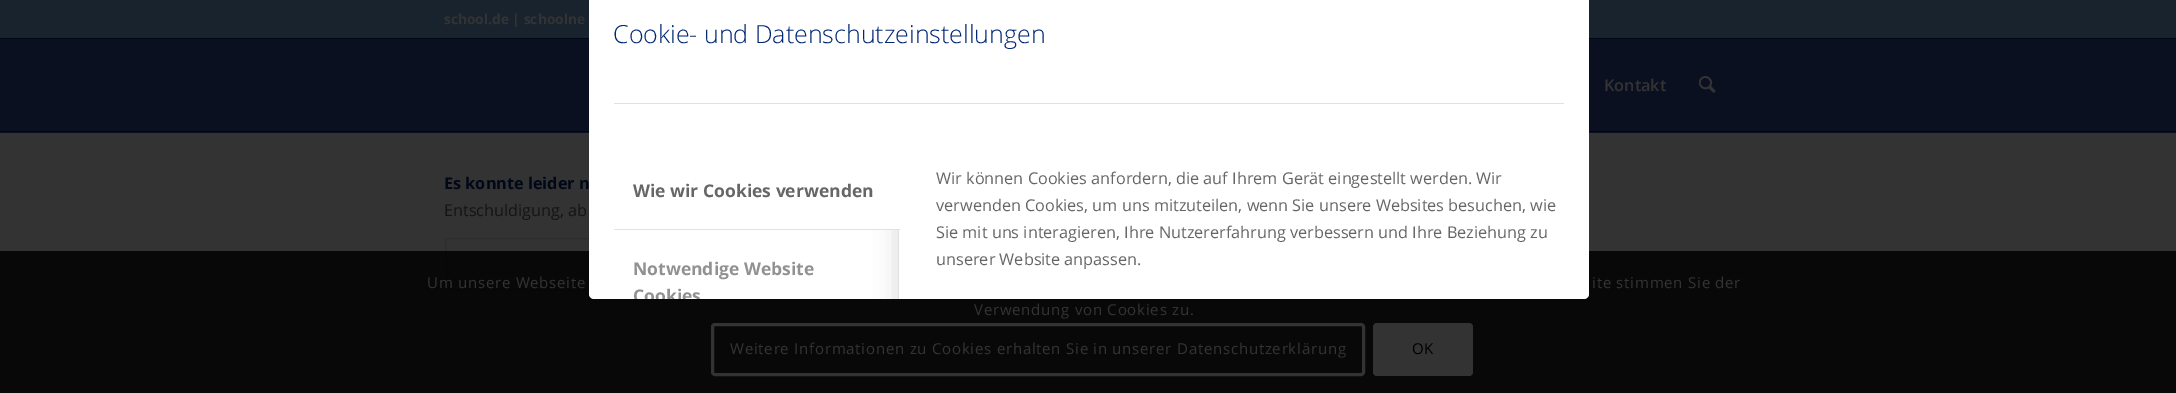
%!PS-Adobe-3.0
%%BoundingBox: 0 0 2176 393
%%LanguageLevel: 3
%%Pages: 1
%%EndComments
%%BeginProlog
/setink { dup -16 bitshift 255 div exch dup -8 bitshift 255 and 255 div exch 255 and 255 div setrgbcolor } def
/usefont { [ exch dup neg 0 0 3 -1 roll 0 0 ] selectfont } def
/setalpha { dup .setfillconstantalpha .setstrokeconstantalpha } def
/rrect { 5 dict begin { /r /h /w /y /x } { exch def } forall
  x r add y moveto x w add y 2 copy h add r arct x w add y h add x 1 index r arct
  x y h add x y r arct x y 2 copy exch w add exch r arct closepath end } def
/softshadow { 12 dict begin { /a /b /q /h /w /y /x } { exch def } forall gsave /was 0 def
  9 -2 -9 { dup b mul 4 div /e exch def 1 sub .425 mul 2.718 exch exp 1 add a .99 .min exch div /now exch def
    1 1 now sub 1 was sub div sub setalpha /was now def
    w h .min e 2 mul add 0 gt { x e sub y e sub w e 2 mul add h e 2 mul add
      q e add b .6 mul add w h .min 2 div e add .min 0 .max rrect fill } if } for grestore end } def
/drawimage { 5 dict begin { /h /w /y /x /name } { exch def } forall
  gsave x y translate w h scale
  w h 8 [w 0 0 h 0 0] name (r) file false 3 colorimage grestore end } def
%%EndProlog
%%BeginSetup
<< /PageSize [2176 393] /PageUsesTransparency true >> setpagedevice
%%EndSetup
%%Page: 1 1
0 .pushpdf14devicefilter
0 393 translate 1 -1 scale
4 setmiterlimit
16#0B1021 setink
0 0 2176 393 rectfill
16#19232E setink
0 0 2176 38 rectfill
16#000817 setink
0 38 2176 1 rectfill
/OpenSans-Bold 13.75 usefont
16#333333 setink
444 24 moveto (school.de | schoolne) show
16#000817 setink
0 131 2176 1 rectfill
/OpenSans-SemiBold 16.25 usefont
16#333333 setink
1604 91 moveto (Kontakt) show
(img1.raw) 1699 76 17 17 drawimage
0 133 2176 260 rectfill
/OpenSans-Bold 16.25 usefont
16#000817 setink
444 189 moveto (Es konnte leider n) show
/OpenSans-Regular 16.25 usefont
16#141414 setink
444 216 moveto (Entschuldigung, ab) show
16#2D2D2D setink
445.5 238.5 374 51 rectstroke
0.85 setalpha
16#000000 setink
0 251 2176 142 rectfill
1 setalpha
16#FFFFFF setink
589 -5 1000 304 5 rrect fill
/OpenSans-Light 25 usefont
16#022875 setink
613 43 moveto (Cookie- und Datenschutzeinstellungen) show
16#E1E1E1 setink
614 103 950 1 rectfill
16#333333 setink
3 setlinewidth
712.5 324.5 651 50 2.5 rrect stroke
1373 323 100 53 4 rrect fill
gsave
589 -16 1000 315 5 rrect clip newpath
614 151 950 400 rectclip
16#000000 setink
901 164 640 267 0 12.5 0.2 softshadow
grestore
16#E1E1E1 setink
898 229 1 70 rectfill
16#FFFFFF setink
901.5 151 moveto 1561.5 151 lineto 1563 151 1564 152 1564 153.5 curveto 1564 299 lineto 899 299 lineto 899 153.5 lineto 899 152 900 151 901.5 151 curveto closepath fill
616.5 151 moveto 900 151 lineto 900 230 lineto 614 230 lineto 614 153.5 lineto 614 152 615 151 616.5 151 curveto closepath fill
16#E1E1E1 setink
614 229 286 1 rectfill
/OpenSans-Bold 17.5 usefont
16#666666 setink
633 197 moveto (Wie wir Cookies verwenden) show
16#919191 setink
633 275 moveto (Notwendige Website) show
gsave
589 -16 1000 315 5 rrect clip newpath
633 302 moveto (Cookies) show
grestore
/OpenSans-Regular 16.25 usefont
16#666666 setink
[
    [(Wir können Cookies anfordern, die auf Ihrem Gerät eingestellt werden. Wir) 936 184]
    [(verwenden Cookies, um uns mitzuteilen, wenn Sie unsere Websites besuchen, wie) 936 211]
    [(Sie mit uns interagieren, Ihre Nutzererfahrung verbessern und Ihre Beziehung zu) 936 238]
    [(unserer Website anpassen.) 936 265]
] { aload pop moveto show } forall
/OpenSans-Regular 15 usefont
16#333333 setink
427 288 moveto 0.75 0 (Um unsere Webseite) ashow
1592 288 moveto 0.75 0 (ite stimmen Sie der) ashow
974 315 moveto 0.75 0 (Verwendung von Cookies zu.) ashow
730 354 moveto 0.75 0 (Weitere Informationen zu Cookies erhalten Sie in unserer Datenschutzerklärung) ashow
16#000000 setink
1412 354 moveto 0.75 0 (OK) ashow
.poppdf14devicefilter showpage
%%EOF
